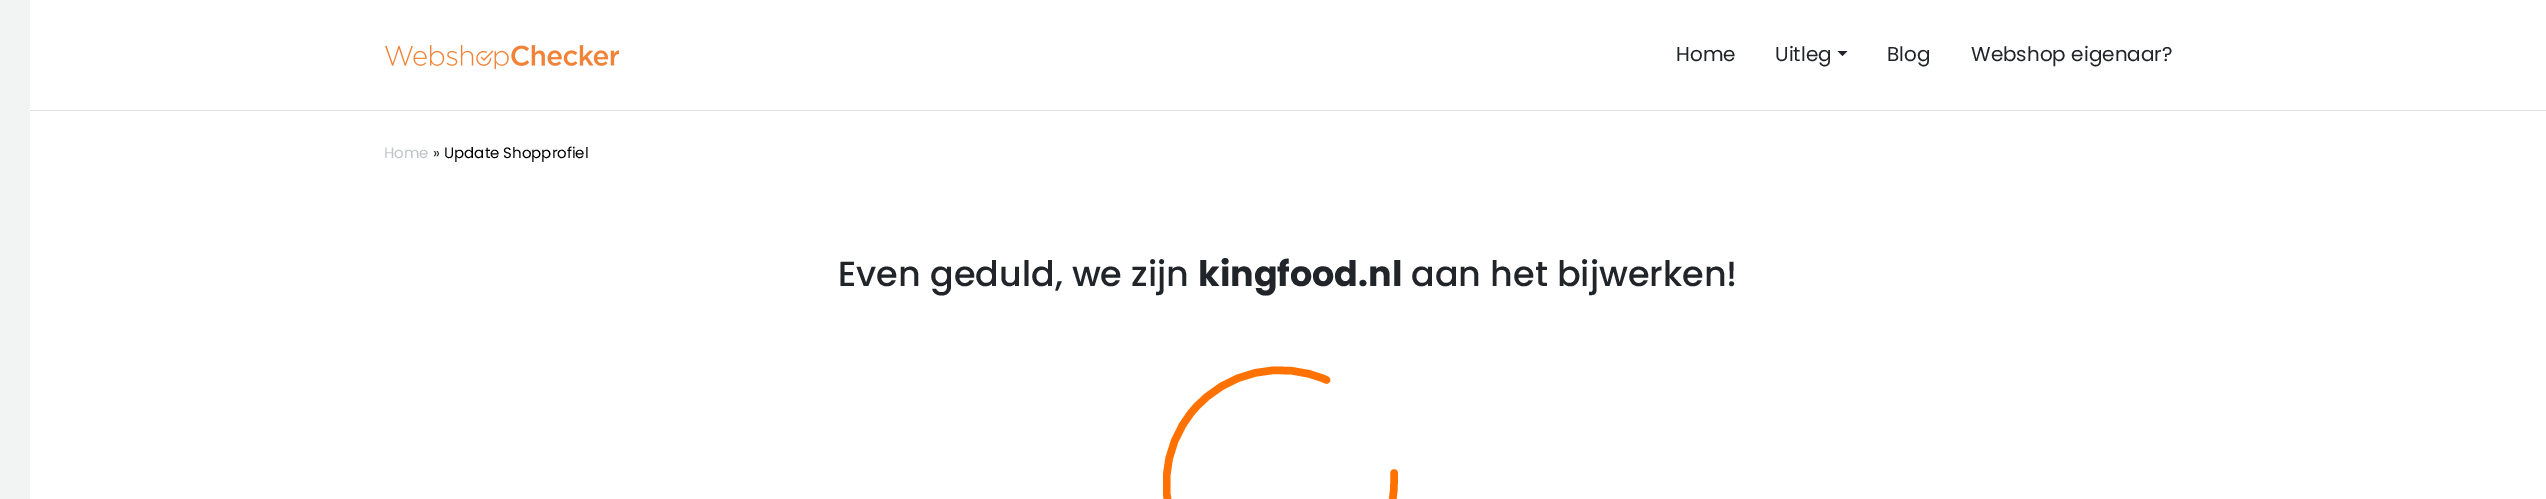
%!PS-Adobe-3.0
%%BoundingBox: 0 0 2546 499
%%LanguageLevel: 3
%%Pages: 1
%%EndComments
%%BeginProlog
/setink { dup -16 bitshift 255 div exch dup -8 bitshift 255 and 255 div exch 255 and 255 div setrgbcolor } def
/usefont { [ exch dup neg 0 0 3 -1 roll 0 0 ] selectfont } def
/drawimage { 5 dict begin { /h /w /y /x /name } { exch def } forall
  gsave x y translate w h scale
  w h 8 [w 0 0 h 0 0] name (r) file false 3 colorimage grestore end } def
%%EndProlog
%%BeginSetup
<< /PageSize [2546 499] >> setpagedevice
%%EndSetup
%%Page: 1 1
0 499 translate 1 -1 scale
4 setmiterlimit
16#FFFFFF setink
0 0 2546 499 rectfill
16#F2F4F4 setink
0 0 30 499 rectfill
16#DEE2E6 setink
30 110 2516 1 rectfill
(img1.raw) 385 45 234 24 drawimage
/Poppins-Regular 20 usefont
16#212529 setink
1676 61 moveto (Home) show
1775 61 moveto (Uitleg) show
1837.5 51 moveto 1847.5 51 lineto 1842.5 56 lineto closepath fill
1887 61 moveto (Blog) show
1971 61 moveto (Webshop eigenaar?) show
/Poppins-Regular 15 usefont
16#BFC4C7 setink
384 158 moveto (Home) show
16#212529 setink
433 158 moveto (») show
16#000000 setink
444 158 moveto (Update Shopprofiel) show
/Poppins-Medium 35 usefont
16#212529 setink
838 286 moveto (Even geduld, we zijn) show
/Poppins-Bold 35 usefont
1198 286 moveto (kingfood.nl) show
/Poppins-Medium 35 usefont
1411 286 moveto (aan het bijwerken!) show
gsave
1163 366 252 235 rectclip
16#FF7100 setink
7.5 setlinewidth
1 setlinecap
1 setlinejoin
1394 473 moveto 1394 484 lineto 1393.5 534 1360.5 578.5 1312.5 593 curveto 1264 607 1212 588 1184.5 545.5 curveto 1157 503.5 1161 448 1193.5 410 curveto 1226.5 371.5 1280.5 359.5 1326.5 380 curveto stroke
grestore
showpage
%%EOF
